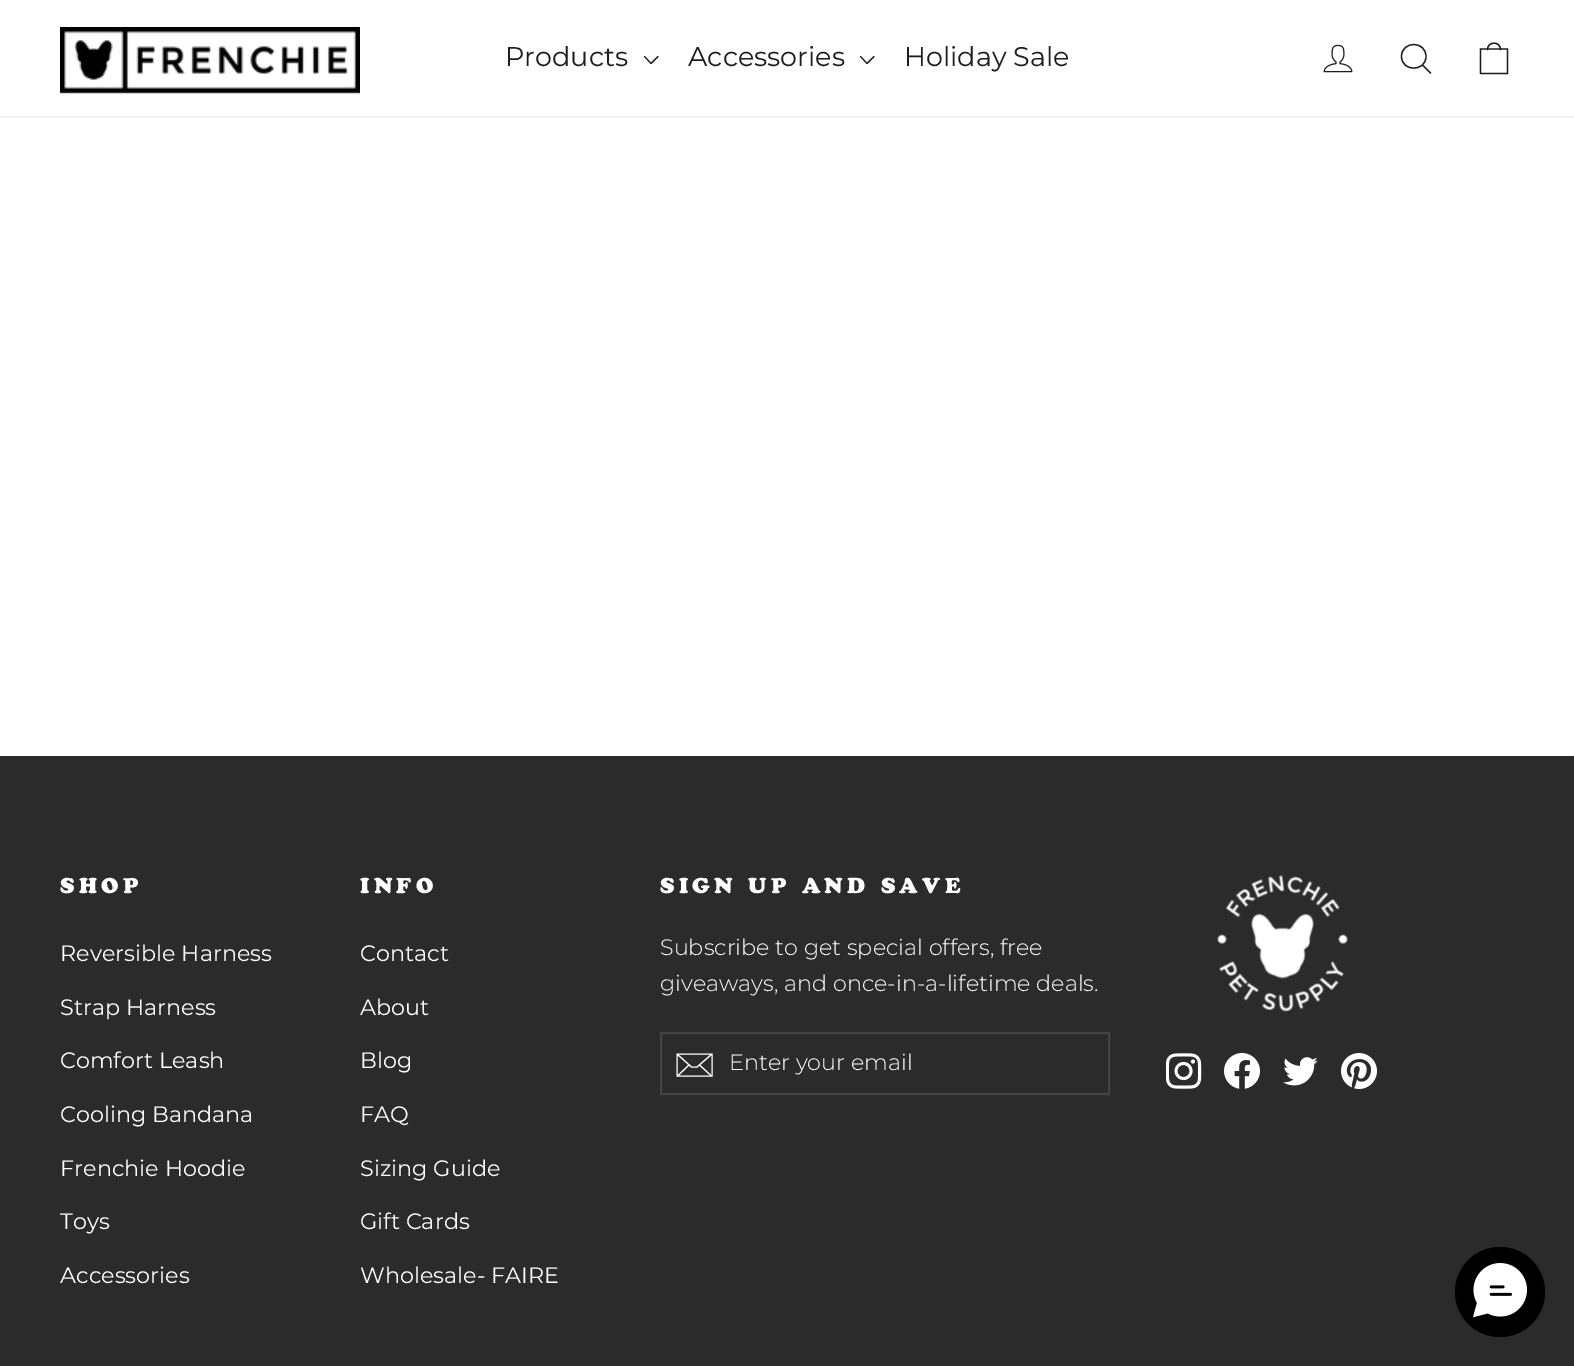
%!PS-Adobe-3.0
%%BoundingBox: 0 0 1574 1366
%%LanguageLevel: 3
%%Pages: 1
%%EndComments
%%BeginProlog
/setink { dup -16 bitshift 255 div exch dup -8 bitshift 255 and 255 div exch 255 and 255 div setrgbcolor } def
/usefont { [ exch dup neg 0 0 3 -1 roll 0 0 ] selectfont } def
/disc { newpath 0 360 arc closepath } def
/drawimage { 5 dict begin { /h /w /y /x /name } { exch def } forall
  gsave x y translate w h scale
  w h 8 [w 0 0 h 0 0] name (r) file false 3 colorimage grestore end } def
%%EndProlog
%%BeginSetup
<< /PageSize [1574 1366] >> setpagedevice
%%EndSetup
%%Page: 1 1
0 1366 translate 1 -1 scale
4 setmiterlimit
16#FFFFFF setink
0 0 1574 1366 rectfill
16#F0F1F3 setink
0 116 1574 2 rectfill
(img1.raw) 60 27 300 67 drawimage
/Montserrat-Thin 27 usefont
16#1C1D1D setink
505 66 moveto (Products) show
1.1 setlinewidth
1 setlinecap
1 setlinejoin
644.5 56.5 moveto 651 63.5 lineto 658 56.5 lineto stroke
688 66 moveto (Accessories) show
860.5 56.5 moveto 867 63.5 lineto 874 56.5 lineto stroke
904 66 moveto (Holiday Sale) show
(img2.raw) 1323 44 30 29 drawimage
1.3 setlinewidth
1426 56.5 moveto 1426 72 1401.5 72 1401.5 56.5 curveto 1401.5 40.5 1426 40.5 1426 56.5 curveto closepath 1430.5 73 moveto 1422.5 65 lineto stroke
1480.5 49 moveto 1507.5 49 lineto 1507.5 73.5 lineto 1480.5 73.5 lineto closepath 1487.5 49.5 moveto 1487.5 41 1500.5 41 1500.5 49.5 curveto stroke
16#2B2B2B setink
0 756 1574 610 rectfill
/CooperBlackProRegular-Black 21.4 usefont
16#FFFFFF setink
60 893 moveto 4.25 0 (SHOP) ashow
/Montserrat-Thin 22.3 usefont
[
    [(Reversible Harness) 60 961]
    [(Strap Harness) 60 1015]
    [(Comfort Leash) 60 1068]
    [(Cooling Bandana) 60 1122]
    [(Frenchie Hoodie) 60 1176]
    [(Toys) 60 1229]
    [(Accessories) 60 1283]
] { aload pop moveto show } forall
/CooperBlackProRegular-Black 21.4 usefont
360 893 moveto 4.25 0 (INFO) ashow
/Montserrat-Thin 22.3 usefont
[
    [(Contact) 360 961]
    [(About) 360 1015]
    [(Blog) 360 1068]
    [(FAQ) 360 1122]
    [(Sizing Guide) 360 1176]
    [(Gift Cards) 360 1229]
    [(Wholesale- FAIRE) 360 1283]
] { aload pop moveto show } forall
/CooperBlackProRegular-Black 21.4 usefont
660 893 moveto 4.25 0 (SIGN UP AND SAVE) ashow
/Montserrat-Light 22.3 usefont
660 955 moveto (Subscribe to get special offers, free) show
660 991 moveto (giveaways, and once-in-a-lifetime deals.) show
16#444444 setink
2 setlinewidth
0 setlinecap
0 setlinejoin
661 1033 448 61 rectstroke
16#FFFFFF setink
1.1 setlinewidth
1 setlinecap
1 setlinejoin
712 1076 moveto 677 1076 lineto 677 1054 lineto 712 1054 lineto closepath 677 1054 moveto 691.5 1067 lineto 697 1067 lineto 712 1054 lineto 689 1065 moveto 677.5 1076 lineto 711.5 1076 moveto 699.5 1065 lineto stroke
729 1070 moveto (Enter your email) show
(img3.raw) 1217 875 131 137 drawimage
(img4.raw) 1166 1053 36 36 drawimage
(img5.raw) 1224 1053 36 36 drawimage
(img6.raw) 1283 1057 35 29 drawimage
(img7.raw) 1341 1053 36 36 drawimage
16#000000 setink
1500 1292 45 disc fill
(img8.raw) 1473 1263 54 55 drawimage
showpage
%%EOF
